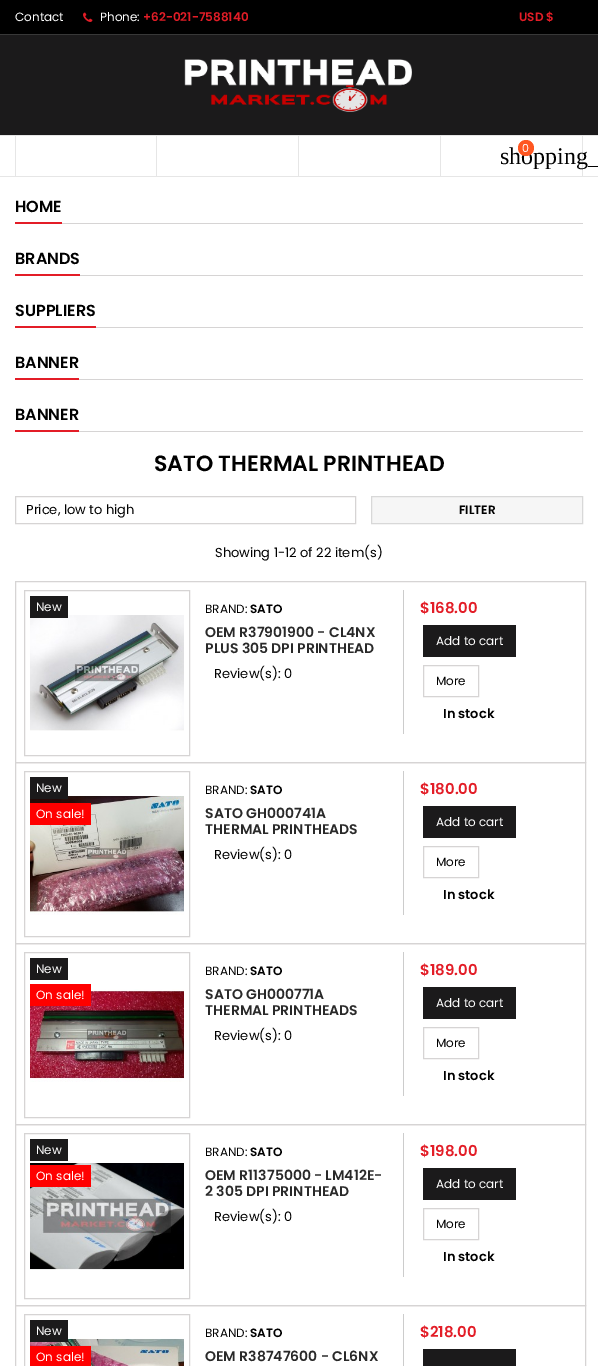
%!PS-Adobe-3.0
%%BoundingBox: 0 0 598 1366
%%LanguageLevel: 3
%%Pages: 1
%%EndComments
%%BeginProlog
/setink { dup -16 bitshift 255 div exch dup -8 bitshift 255 and 255 div exch 255 and 255 div setrgbcolor } def
/usefont { [ exch dup neg 0 0 3 -1 roll 0 0 ] selectfont } def
/disc { newpath 0 360 arc closepath } def
/drawimage { 5 dict begin { /h /w /y /x /name } { exch def } forall
  gsave x y translate w h scale
  w h 8 [w 0 0 h 0 0] name (r) file false 3 colorimage grestore end } def
%%EndProlog
%%BeginSetup
<< /PageSize [598 1366] >> setpagedevice
%%EndSetup
%%Page: 1 1
0 1366 translate 1 -1 scale
4 setmiterlimit
16#FFFFFF setink
0 0 598 1366 rectfill
16#000000 setink
0 0 598 34 rectfill
16#383838 setink
0 34 598 1 rectfill
/Poppins-Regular 12 usefont
16#FFFFFF setink
15 21 moveto (Contact) show
(img1.raw) 83 12 10 10 drawimage
100 21 moveto (Phone:) show
/Poppins-SemiBold 12 usefont
16#E31D27 setink
143 21 moveto (+62-021-7588140) show
519 21 moveto (USD $) show
16#1B1A1B setink
0 35 598 100 rectfill
(img2.raw) 184 59 228 53 drawimage
[
    [0 135 598 1 16#E6E6E6]
    [0 176 598 1 16#E6E6E6]
    [156 136 1 40 16#E6E6E6]
    [15 136 1 40 16#E6E6E6]
    [298 136 1 40 16#E6E6E6]
    [440 136 1 40 16#E6E6E6]
    [582 136 1 40 16#E6E6E6]
] { aload pop setink rectfill } forall
/LiberationSerif-Regular 24 usefont
16#000000 setink
500 164 moveto (shopping_) show
16#FF5722 setink
526 148 8 disc fill
/Poppins-Regular 11 usefont
16#FFFFFF setink
522 152 moveto (0) show
16#D6D4D4 setink
62 223 521 1 rectfill
16#E31D27 setink
15 222 47 2 rectfill
/Poppins-SemiBold 16 usefont
16#000000 setink
15 212 moveto (HOME) show
16#D6D4D4 setink
80 275 503 1 rectfill
16#E31D27 setink
15 274 65 2 rectfill
16#000000 setink
15 264 moveto (BRANDS) show
16#D6D4D4 setink
96 327 487 1 rectfill
16#E31D27 setink
15 326 81 2 rectfill
16#000000 setink
15 316 moveto (SUPPLIERS) show
16#D6D4D4 setink
79 379 504 1 rectfill
16#E31D27 setink
15 378 64 2 rectfill
16#000000 setink
15 368 moveto (BANNER) show
16#D6D4D4 setink
79 431 504 1 rectfill
16#E31D27 setink
15 430 64 2 rectfill
16#000000 setink
15 420 moveto (BANNER) show
/Poppins-SemiBold 22 usefont
154 471 moveto (SATO THERMAL PRINTHEAD) show
16#D6D4D4 setink
15.5 496.5 340 27 rectstroke
/Poppins-Regular 13 usefont
16#000000 setink
26 514 moveto (Price, low to high) show
16#F6F6F6 setink
371.5 496.5 moveto 582.5 496.5 lineto 582.5 523.5 lineto 371.5 523.5 lineto closepath gsave fill grestore
16#D8D8D8 setink
stroke
/Poppins-SemiBold 12 usefont
16#000000 setink
459 514 moveto (FILTER) show
/Poppins-Regular 13 usefont
215 557 moveto (Showing 1-12 of 22 item\(s\)) show
16#D6D4D4 setink
15.5 581.5 570 181 rectstroke
24.5 590.5 165 165 rectstroke
(img3.raw) 30 615 154 116 drawimage
16#1B1A1B setink
30 596 38 22 rectfill
/Poppins-Regular 12 usefont
16#FFFFFF setink
36 611 moveto (New) show
16#000000 setink
205 613 moveto (BRAND:) show
/Poppins-SemiBold 12 usefont
250 613 moveto (SATO) show
/Poppins-SemiBold 14 usefont
16#292929 setink
205 637 moveto (OEM R37901900 - CL4NX) show
205 653 moveto (PLUS 305 DPI PRINTHEAD) show
/Poppins-Regular 13 usefont
16#000000 setink
214 678 moveto (Review\(s\): 0) show
16#CCCCCC setink
403 590 1 144 rectfill
/Poppins-SemiBold 15 usefont
16#E31D27 setink
420 613 moveto ($168.00) show
16#1B1A1B setink
423 625 93 32 rectfill
/Poppins-Regular 12 usefont
16#FFFFFF setink
436 645 moveto (Add to cart) show
16#D6D4D4 setink
423.5 665.5 55 31 rectstroke
16#000000 setink
436 685 moveto (More) show
/Poppins-SemiBold 13 usefont
443 718 moveto (In stock) show
16#D6D4D4 setink
15.5 762.5 570 181 rectstroke
24.5 771.5 165 165 rectstroke
(img4.raw) 30 796 154 119 drawimage
16#1B1A1B setink
30 777 38 22 rectfill
/Poppins-Regular 12 usefont
16#FFFFFF setink
36 792 moveto (New) show
16#FF0000 setink
30 803 61 22 rectfill
16#FFFFFF setink
36 818 moveto (On sale!) show
16#000000 setink
205 794 moveto (BRAND:) show
/Poppins-SemiBold 12 usefont
250 794 moveto (SATO) show
/Poppins-SemiBold 14 usefont
16#292929 setink
205 818 moveto (SATO GH000741A) show
205 834 moveto (THERMAL PRINTHEADS) show
/Poppins-Regular 13 usefont
16#000000 setink
214 859 moveto (Review\(s\): 0) show
16#CCCCCC setink
403 771 1 144 rectfill
/Poppins-SemiBold 15 usefont
16#E31D27 setink
420 794 moveto ($180.00) show
16#1B1A1B setink
423 806 93 32 rectfill
/Poppins-Regular 12 usefont
16#FFFFFF setink
436 826 moveto (Add to cart) show
16#D6D4D4 setink
423.5 846.5 55 31 rectstroke
16#000000 setink
436 866 moveto (More) show
/Poppins-SemiBold 13 usefont
443 899 moveto (In stock) show
16#D6D4D4 setink
15.5 943.5 570 181 rectstroke
24.5 952.5 165 165 rectstroke
16#1B1A1B setink
30 958 38 22 rectfill
/Poppins-Regular 12 usefont
16#FFFFFF setink
36 973 moveto (New) show
(img5.raw) 30 989 154 93 drawimage
16#FF0000 setink
30 984 61 22 rectfill
16#FFFFFF setink
36 999 moveto (On sale!) show
16#000000 setink
205 975 moveto (BRAND:) show
/Poppins-SemiBold 12 usefont
250 975 moveto (SATO) show
/Poppins-SemiBold 14 usefont
16#292929 setink
205 999 moveto (SATO GH000771A) show
205 1015 moveto (THERMAL PRINTHEADS) show
/Poppins-Regular 13 usefont
16#000000 setink
214 1040 moveto (Review\(s\): 0) show
16#CCCCCC setink
403 952 1 144 rectfill
/Poppins-SemiBold 15 usefont
16#E31D27 setink
420 975 moveto ($189.00) show
16#1B1A1B setink
423 987 93 32 rectfill
/Poppins-Regular 12 usefont
16#FFFFFF setink
436 1007 moveto (Add to cart) show
16#D6D4D4 setink
423.5 1027.5 55 31 rectstroke
16#000000 setink
436 1047 moveto (More) show
/Poppins-SemiBold 13 usefont
443 1080 moveto (In stock) show
16#D6D4D4 setink
15.5 1124.5 570 181 rectstroke
24.5 1133.5 165 165 rectstroke
16#1B1A1B setink
30 1139 38 22 rectfill
/Poppins-Regular 12 usefont
16#FFFFFF setink
36 1154 moveto (New) show
(img6.raw) 30 1163 154 107 drawimage
16#FF0000 setink
30 1165 61 22 rectfill
16#FFFFFF setink
36 1180 moveto (On sale!) show
16#000000 setink
205 1156 moveto (BRAND:) show
/Poppins-SemiBold 12 usefont
250 1156 moveto (SATO) show
/Poppins-SemiBold 14 usefont
16#292929 setink
205 1180 moveto (OEM R11375000 - LM412E-) show
205 1196 moveto (2 305 DPI PRINTHEAD) show
/Poppins-Regular 13 usefont
16#000000 setink
214 1221 moveto (Review\(s\): 0) show
16#CCCCCC setink
403 1133 1 144 rectfill
/Poppins-SemiBold 15 usefont
16#E31D27 setink
420 1156 moveto ($198.00) show
16#1B1A1B setink
423 1168 93 32 rectfill
/Poppins-Regular 12 usefont
16#FFFFFF setink
436 1188 moveto (Add to cart) show
16#D6D4D4 setink
423.5 1208.5 55 31 rectstroke
16#000000 setink
436 1228 moveto (More) show
/Poppins-SemiBold 13 usefont
443 1261 moveto (In stock) show
16#D6D4D4 setink
15.5 1305.5 570 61 rectstroke
24.5 1314.5 165 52 rectstroke
(img7.raw) 30 1338 154 28 drawimage
16#1B1A1B setink
30 1320 38 22 rectfill
/Poppins-Regular 12 usefont
16#FFFFFF setink
36 1335 moveto (New) show
16#FF0000 setink
30 1346 61 20 rectfill
16#FFFFFF setink
36 1361 moveto (On sale!) show
16#000000 setink
205 1337 moveto (BRAND:) show
/Poppins-SemiBold 12 usefont
250 1337 moveto (SATO) show
/Poppins-SemiBold 14 usefont
16#292929 setink
205 1361 moveto (OEM R38747600 - CL6NX) show
16#CCCCCC setink
403 1314 1 52 rectfill
/Poppins-SemiBold 15 usefont
16#E31D27 setink
420 1337 moveto ($218.00) show
16#1B1A1B setink
423 1349 93 17 rectfill
showpage
%%EOF
